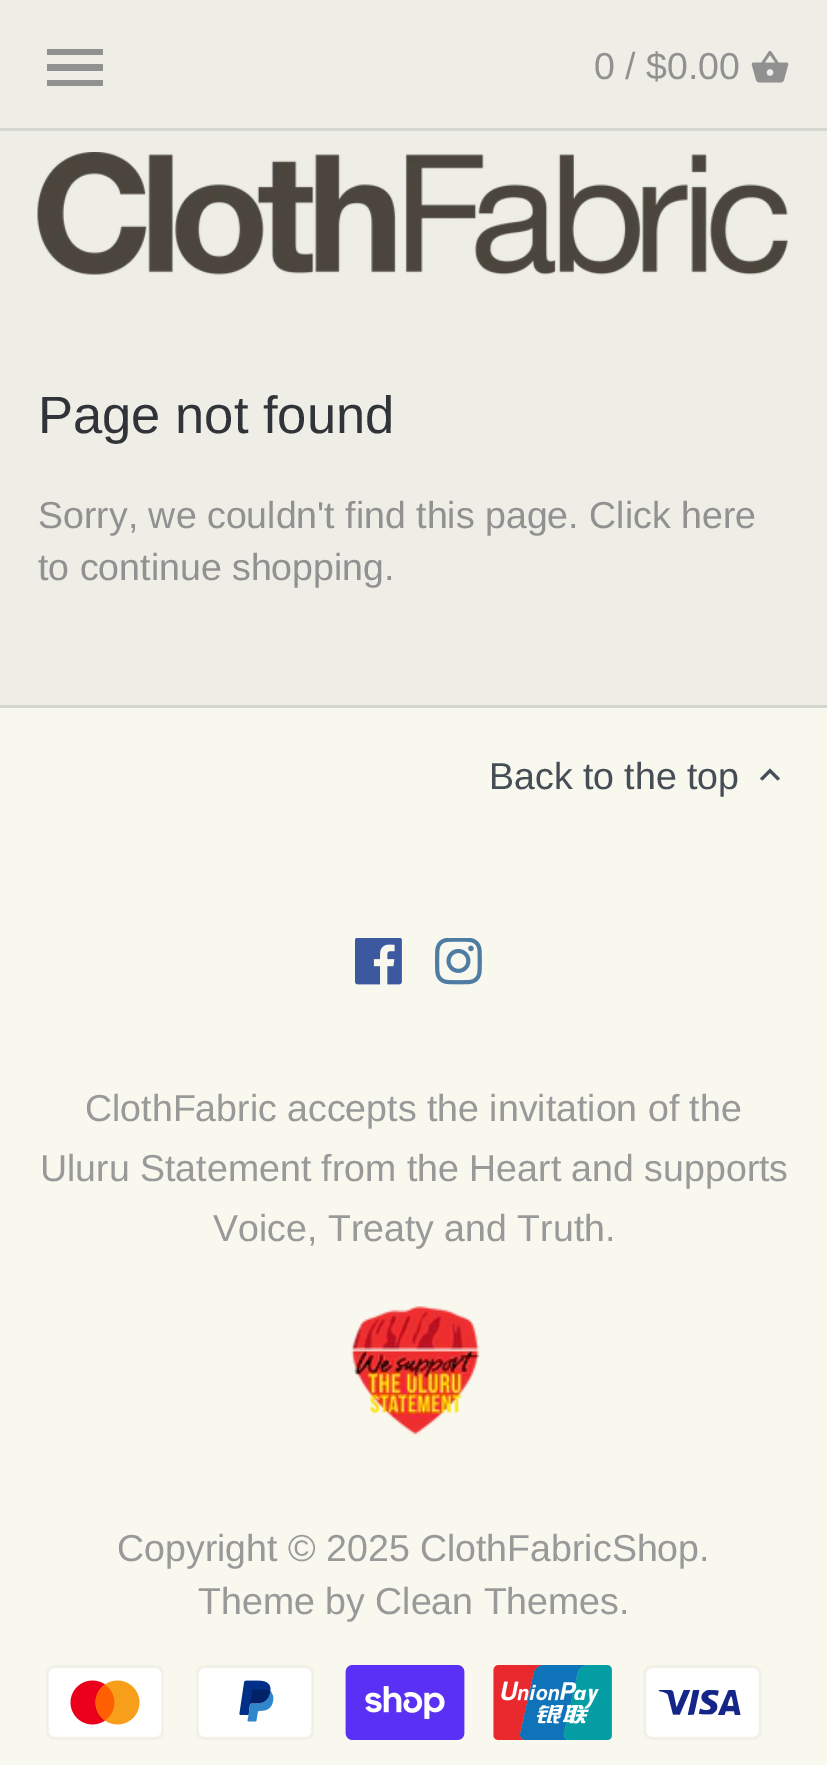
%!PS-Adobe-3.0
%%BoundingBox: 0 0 827 1765
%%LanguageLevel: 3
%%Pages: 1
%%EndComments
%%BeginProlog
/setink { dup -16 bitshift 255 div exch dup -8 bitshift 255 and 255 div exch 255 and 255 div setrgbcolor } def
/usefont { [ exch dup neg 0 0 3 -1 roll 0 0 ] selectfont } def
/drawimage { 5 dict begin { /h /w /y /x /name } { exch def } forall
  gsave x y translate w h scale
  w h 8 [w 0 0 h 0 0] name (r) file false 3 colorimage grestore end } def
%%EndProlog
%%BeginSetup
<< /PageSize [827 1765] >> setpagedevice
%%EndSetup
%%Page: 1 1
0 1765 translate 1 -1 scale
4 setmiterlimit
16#F9F8EF setink
0 0 827 1765 rectfill
16#EEEEE6 setink
0 0 827 705 rectfill
16#D5D6D0 setink
0 128 827 3 rectfill
16#929191 setink
47 86 moveto 103 86 lineto 103 80 lineto 47 80 lineto closepath 47 71 moveto 103 71 lineto 103 64 lineto 47 64 lineto closepath 47 49 moveto 47 55 lineto 103 55 lineto 103 49 lineto closepath fill
/LiberationSans-Regular 37.5 usefont
594 79 moveto (0 / $0.00) show
(img1.raw) 751 51 38 32 drawimage
(img2.raw) 37 152 751 123 drawimage
/LiberationSans-Regular 52.5 usefont
16#303438 setink
38 433 moveto (Page not found) show
/LiberationSans-Regular 37.5 usefont
16#929191 setink
38 528 moveto (Sorry, we couldn't find this page. Click here) show
38 580 moveto (to continue shopping.) show
16#D5D6D0 setink
0 705 827 3 rectfill
16#454E54 setink
489 789 moveto (Back to the top) show
762.5 780.5 moveto 770 773 lineto 777.5 780.5 lineto 780 778.5 lineto 770 768.5 lineto 760 778.5 lineto closepath fill
(img3.raw) 355 938 47 47 drawimage
(img4.raw) 435 938 47 47 drawimage
16#999999 setink
[
    [(ClothFabric accepts the invitation of the) 85 1121]
    [(Uluru Statement from the Heart and supports) 40 1181]
    [(Voice, Treaty and Truth.) 213 1241]
] { aload pop moveto show } forall
(img5.raw) 351 1306 129 129 drawimage
117 1561 moveto (Copyright © 2025 ClothFabricShop.) show
198 1614 moveto (Theme by Clean Themes.) show
(img6.raw) 46 1665 118 75 drawimage
(img7.raw) 196 1665 118 75 drawimage
(img8.raw) 345 1665 120 75 drawimage
(img9.raw) 493 1665 119 75 drawimage
(img10.raw) 643 1665 119 75 drawimage
showpage
%%EOF
